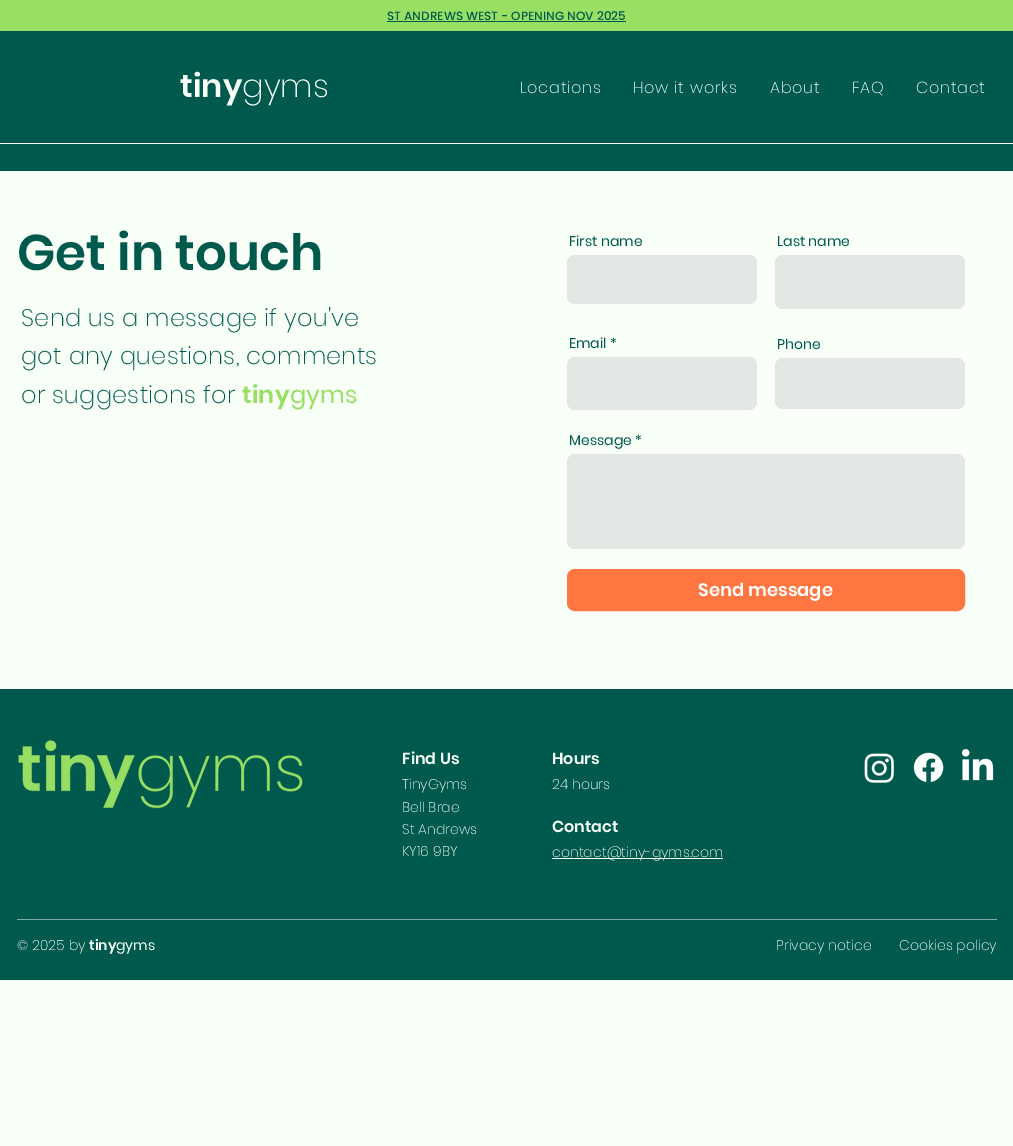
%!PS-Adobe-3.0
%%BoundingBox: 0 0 1013 1146
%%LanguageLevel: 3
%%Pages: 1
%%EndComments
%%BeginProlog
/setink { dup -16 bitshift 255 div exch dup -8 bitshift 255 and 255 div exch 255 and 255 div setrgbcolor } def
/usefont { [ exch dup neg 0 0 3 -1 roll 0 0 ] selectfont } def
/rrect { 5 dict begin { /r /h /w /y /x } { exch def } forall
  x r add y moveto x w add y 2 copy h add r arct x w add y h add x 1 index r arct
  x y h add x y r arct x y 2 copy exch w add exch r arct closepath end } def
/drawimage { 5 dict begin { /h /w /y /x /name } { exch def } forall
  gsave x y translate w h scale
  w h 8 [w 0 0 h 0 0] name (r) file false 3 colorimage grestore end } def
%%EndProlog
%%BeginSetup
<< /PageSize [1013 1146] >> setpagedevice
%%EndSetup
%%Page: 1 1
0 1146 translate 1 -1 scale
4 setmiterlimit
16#F7FFF7 setink
0 0 1013 1146 rectfill
16#99DF63 setink
0 0 1013 31 rectfill
/Poppins-Medium 12 usefont
16#00594D setink
387 20 moveto (ST ANDREWS WEST - OPENING NOV 2025) show
387 21 239 1 rectfill
0 31 1013 112 rectfill
/Poppins-SemiBold 32 usefont
16#F7FFF7 setink
180 97 moveto (tiny) show
/Poppins-ExtraLight 32 usefont
242 97 moveto (gyms) show
/Poppins-ExtraLight 16 usefont
520 93 moveto 0.75 0 (Locations) ashow
633 93 moveto 0.75 0 (How it works) ashow
770 93 moveto 0.75 0 (About) ashow
852 93 moveto 0.75 0 (FAQ) ashow
916 93 moveto 0.75 0 (Contact) ashow
16#00594D setink
0 144 1013 27 rectfill
/Poppins-SemiBold 50 usefont
17 270 moveto (Get in touch) show
/Poppins-Regular 14 usefont
569 246 moveto (First name) show
16#E1E7E3 setink
567 255 190 49 8 rrect fill
16#00594D setink
777 246 moveto (Last name) show
16#E1E7E3 setink
775 255 190 54 8 rrect fill
16#00594D setink
569 348 moveto (Email *) show
16#E1E7E3 setink
567 357 190 53 8 rrect fill
16#00594D setink
777 349 moveto (Phone) show
16#E1E7E3 setink
775 358 190 51 8 rrect fill
16#00594D setink
569 445 moveto (Message *) show
16#E1E7E3 setink
567 454 398 95 8 rrect fill
16#FF7640 setink
567.5 569.5 397 41 7.5 rrect gsave fill grestore
stroke
/Poppins-SemiBold 18 usefont
16#FFFFFF setink
698 596 moveto (Send message) show
/Poppins-ExtraLight 24 usefont
16#00594D setink
21 326 moveto 0.25 0 (Send us a message if you've) ashow
21 364 moveto 0.25 0 (got any questions, comments) ashow
21 403 moveto 0.25 0 (or suggestions for) ashow
/Poppins-SemiBold 24 usefont
16#99DF63 setink
242 403 moveto 0.25 0 (tiny) ashow
/Poppins-Regular 24 usefont
290 403 moveto 0.25 0 (gyms) ashow
16#00594D setink
0 689 1013 291 rectfill
(img1.raw) 18 740 285 69 drawimage
/Poppins-SemiBold 16 usefont
16#F7FFF7 setink
402 764 moveto (Find Us) show
/Poppins-ExtraLight 14 usefont
[
    [(TinyGyms) 402 789]
    [(Bell Brae) 402 812]
    [(St Andrews) 402 834]
    [(KY16 9BY) 402 856]
] { aload pop moveto show } forall
/Poppins-SemiBold 16 usefont
552 764 moveto (Hours) show
/Poppins-ExtraLight 14 usefont
552 789 moveto (24 hours) show
(img2.raw) 864 753 30 30 drawimage
(img3.raw) 913 752 31 30 drawimage
(img4.raw) 961 748 33 33 drawimage
/Poppins-SemiBold 16 usefont
552 832 moveto (Contact) show
552 858 171 1 rectfill
/Poppins-ExtraLight 14 usefont
552 857 moveto (contact@tiny-gyms.com) show
16#7CACA2 setink
17 919 980 1 rectfill
16#F7FFF7 setink
17 950 moveto (© 2025 by) show
/Poppins-SemiBold 14 usefont
89 950 moveto (tiny) show
/Poppins-Regular 14 usefont
116 950 moveto (gyms) show
/Poppins-ExtraLight 14 usefont
776 950 moveto (Privacy notice) show
899 950 moveto (Cookies policy) show
showpage
%%EOF
